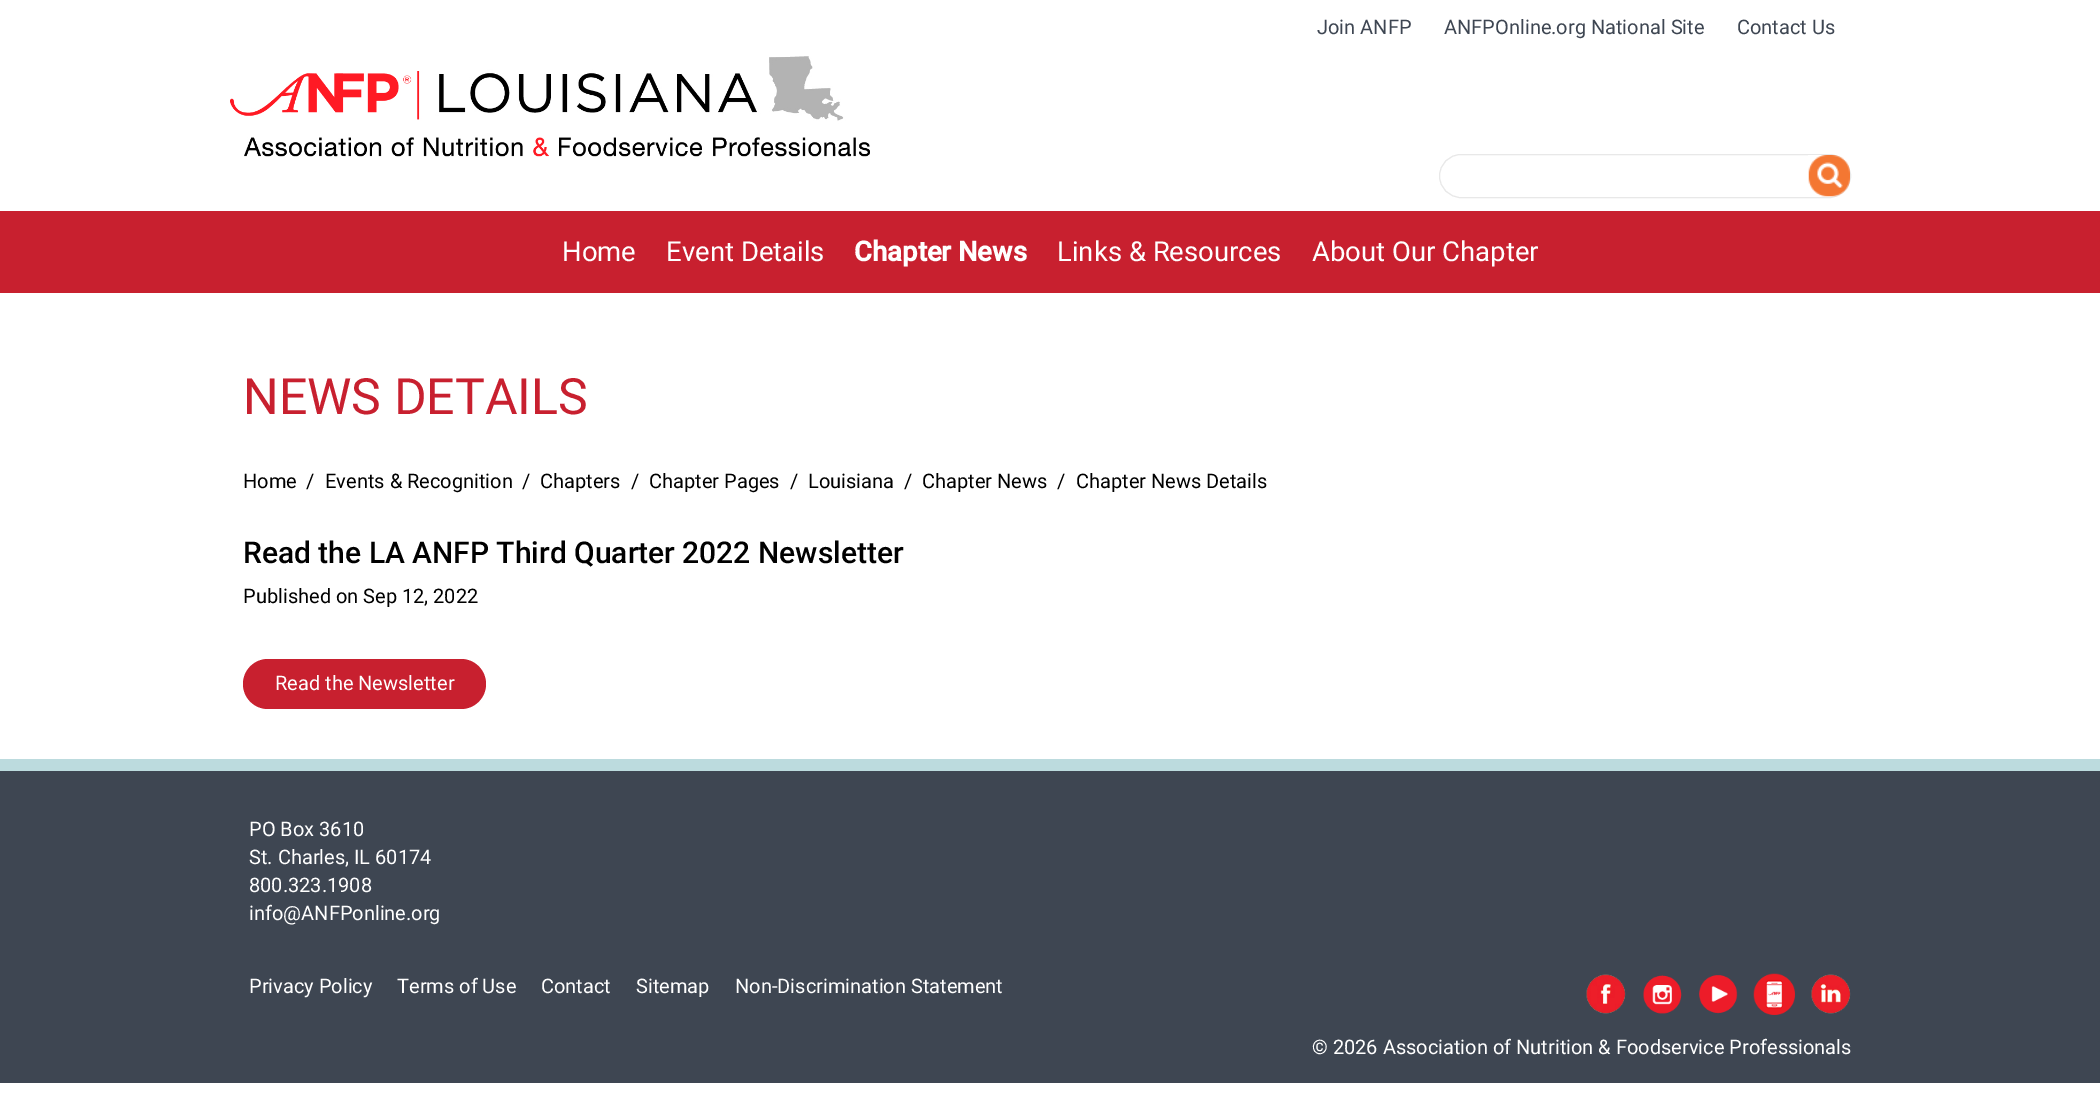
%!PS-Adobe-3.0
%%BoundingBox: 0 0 2100 1113
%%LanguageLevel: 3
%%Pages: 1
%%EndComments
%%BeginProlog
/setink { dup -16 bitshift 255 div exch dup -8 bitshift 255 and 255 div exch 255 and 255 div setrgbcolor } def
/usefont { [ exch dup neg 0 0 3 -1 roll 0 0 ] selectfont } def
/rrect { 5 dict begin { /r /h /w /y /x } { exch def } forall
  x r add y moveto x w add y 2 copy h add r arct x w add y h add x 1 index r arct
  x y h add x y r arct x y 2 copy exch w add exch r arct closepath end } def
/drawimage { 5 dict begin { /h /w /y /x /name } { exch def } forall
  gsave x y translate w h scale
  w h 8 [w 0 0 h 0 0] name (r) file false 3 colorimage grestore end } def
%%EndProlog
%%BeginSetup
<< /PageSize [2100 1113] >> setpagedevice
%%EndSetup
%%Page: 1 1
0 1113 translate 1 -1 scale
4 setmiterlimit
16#FFFFFF setink
0 0 2100 1113 rectfill
/Roboto-Regular 20 usefont
16#3E4652 setink
[
    [(Join ANFP) 1317 34]
    [(ANFPOnline.org National Site) 1444 34]
    [(Contact Us) 1737 34]
] { aload pop moveto show } forall
16#E8E8E8 setink
1439.5 154.5 411 43 21.5 rrect stroke
(img1.raw) 1808 155 42 42 drawimage
(img2.raw) 230 56 640 101 drawimage
16#C8202F setink
0 211 2100 82 rectfill
/Roboto-Regular 27.5 usefont
16#FFFFFF setink
562 261 moveto (Home) show
666 261 moveto (Event Details) show
/Roboto-Bold 27.5 usefont
854 261 moveto (Chapter News) show
/Roboto-Regular 27.5 usefont
1057 261 moveto (Links & Resources) show
1312 261 moveto (About Our Chapter) show
/Roboto-Regular 50 usefont
16#C8202F setink
243 414 moveto (NEWS DETAILS) show
/Roboto-Regular 20 usefont
16#000000 setink
[
    [(Home) 243 488]
    [(/) 306 488]
    [(Events & Recognition) 325 488]
    [(/) 522 488]
    [(Chapters) 540 488]
    [(/) 631 488]
    [(Chapter Pages) 649 488]
    [(/) 790 488]
    [(Louisiana) 808 488]
    [(/) 904 488]
    [(Chapter News) 922 488]
    [(/) 1057 488]
    [(Chapter News Details) 1076 488]
] { aload pop moveto show } forall
/Roboto-Medium 30 usefont
243 563 moveto (Read the LA ANFP Third Quarter 2022 Newsletter) show
/Roboto-Regular 20 usefont
243 603 moveto (Published on Sep 12, 2022) show
16#C8202F setink
243 659 243 50 25 rrect fill
16#FFFFFF setink
275 690 moveto (Read the Newsletter) show
16#3E4652 setink
0 771 2100 312 rectfill
16#BCDBDE setink
0 759 2100 12 rectfill
16#FFFFFF setink
[
    [(PO Box 3610) 249 836]
    [(St. Charles, IL 60174) 249 864]
    [(800.323.1908) 249 892]
    [(info@ANFPonline.org) 249 920]
    [(Privacy Policy) 249 993]
    [(Terms of Use) 397 993]
    [(Contact) 541 993]
    [(Sitemap) 636 993]
    [(Non-Discrimination Statement) 735 993]
] { aload pop moveto show } forall
(img3.raw) 1586 974 40 40 drawimage
(img4.raw) 1643 975 39 39 drawimage
(img5.raw) 1699 975 39 39 drawimage
(img6.raw) 1753 973 42 42 drawimage
(img7.raw) 1811 974 40 40 drawimage
1312 1054 moveto (© 2026 Association of Nutrition & Foodservice Professionals) show
showpage
%%EOF
